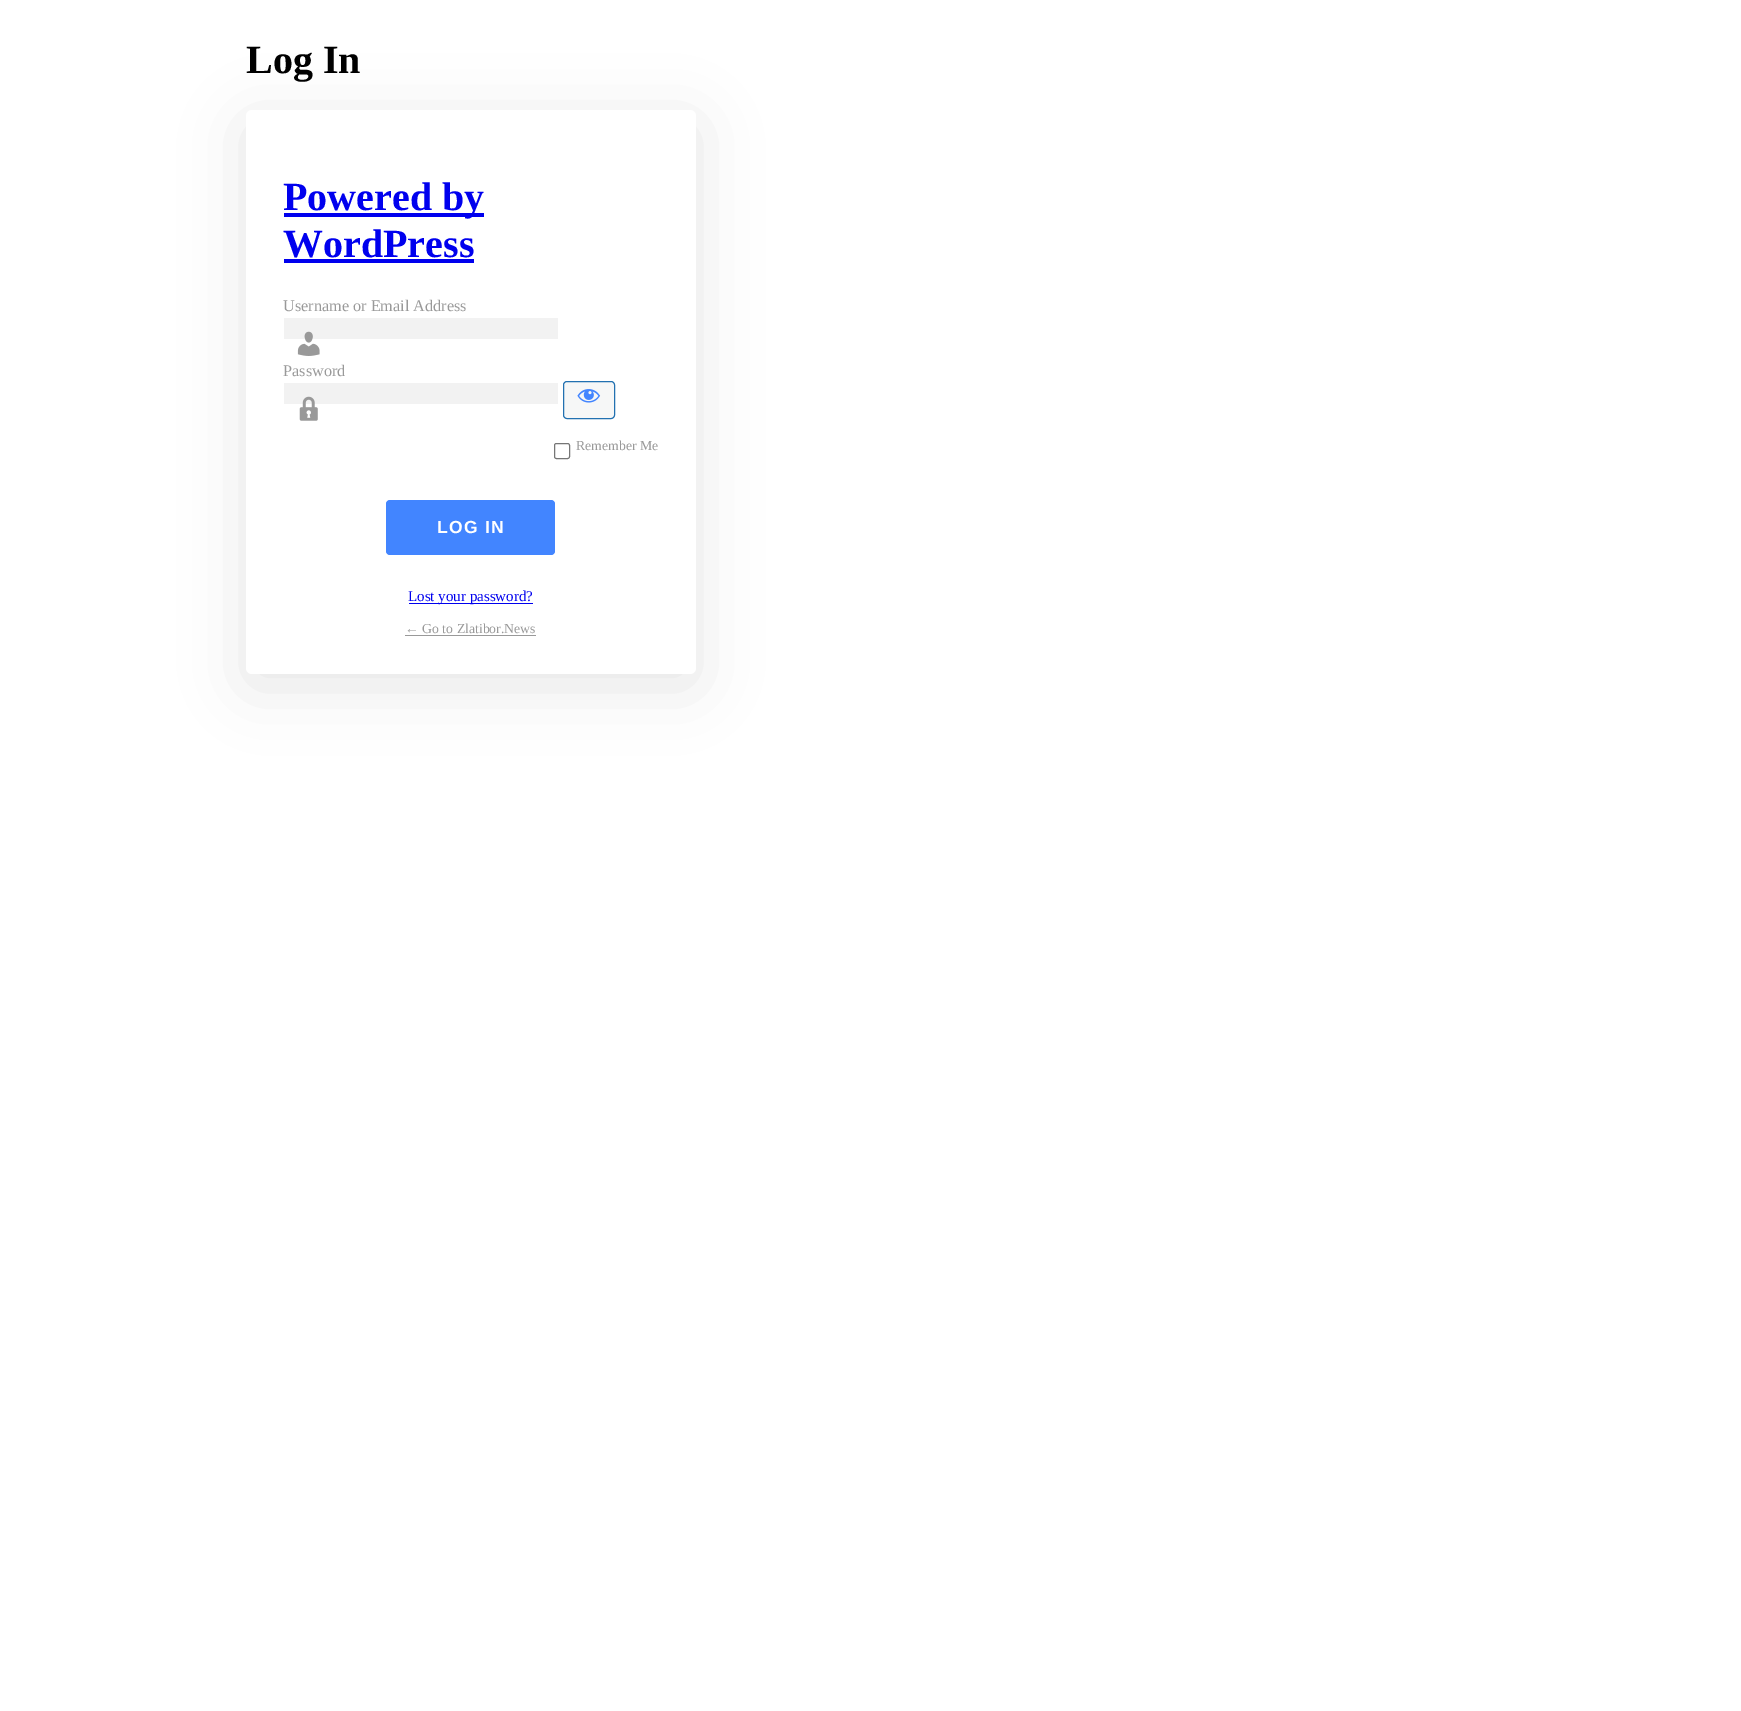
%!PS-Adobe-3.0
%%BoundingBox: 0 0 1741 1711
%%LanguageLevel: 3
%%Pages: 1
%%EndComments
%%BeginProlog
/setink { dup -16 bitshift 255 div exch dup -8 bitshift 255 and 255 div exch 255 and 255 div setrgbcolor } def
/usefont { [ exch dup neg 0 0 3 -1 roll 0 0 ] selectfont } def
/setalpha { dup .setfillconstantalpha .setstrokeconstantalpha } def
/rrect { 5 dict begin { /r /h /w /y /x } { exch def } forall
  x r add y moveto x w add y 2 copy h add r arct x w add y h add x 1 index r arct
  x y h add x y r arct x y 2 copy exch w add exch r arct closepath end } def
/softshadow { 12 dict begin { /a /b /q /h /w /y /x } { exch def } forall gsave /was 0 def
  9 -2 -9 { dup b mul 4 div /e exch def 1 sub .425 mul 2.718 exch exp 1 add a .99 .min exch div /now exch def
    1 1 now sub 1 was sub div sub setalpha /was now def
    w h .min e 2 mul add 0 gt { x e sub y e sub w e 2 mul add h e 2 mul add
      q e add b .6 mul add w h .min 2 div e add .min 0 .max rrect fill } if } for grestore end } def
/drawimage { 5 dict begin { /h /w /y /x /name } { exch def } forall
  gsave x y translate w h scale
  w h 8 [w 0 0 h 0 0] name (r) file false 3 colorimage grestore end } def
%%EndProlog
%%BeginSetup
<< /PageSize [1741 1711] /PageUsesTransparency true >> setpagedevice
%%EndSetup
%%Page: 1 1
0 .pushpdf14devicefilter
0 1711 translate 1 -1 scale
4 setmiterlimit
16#FFFFFF setink
0 0 1741 1711 rectfill
/LiberationSerif-Bold 40 usefont
16#000000 setink
246 73 moveto (Log In) show
246 123 450 563 6 31 0.1 softshadow
16#FFFFFF setink
246 110 450 564 6 rrect fill
16#0000EE setink
284 213 200 4 rectfill
283 210 moveto (Powered by) show
283 257 moveto (WordPress) show
284 259 190 4 rectfill
/LiberationSerif-Regular 16.25 usefont
16#999999 setink
283 311 moveto (Username or Email Address) show
16#F2F2F2 setink
284 318 274 21 rectfill
(img1.raw) 297 331 23 25 drawimage
16#999999 setink
283 376 moveto (Password) show
16#F2F2F2 setink
284 383 274 21 rectfill
(img2.raw) 299 396 19 25 drawimage
16#F6F7F7 setink
563.5 381.5 51 37 3.5 rrect gsave fill grestore
16#2271B1 setink
stroke
(img3.raw) 577 389 24 14 drawimage
16#767676 setink
554.5 443.5 15 15 2 rrect stroke
/LiberationSerif-Regular 13.75 usefont
16#999999 setink
576 450 moveto (Remember Me) show
16#4285FF setink
386 500 169 55 4 rrect fill
/LiberationSans-Bold 17.5 usefont
16#FFFFFF setink
437 533 moveto 1.25 0 (LOG IN) ashow
16#0000EE setink
409 603 124 1 rectfill
/LiberationSerif-Regular 15 usefont
408 601 moveto (Lost your password?) show
/LiberationSerif-Regular 13.75 usefont
16#999999 setink
405 633 moveto (← Go to Zlatibor.News) show
405 635 131 1 rectfill
.poppdf14devicefilter showpage
%%EOF
